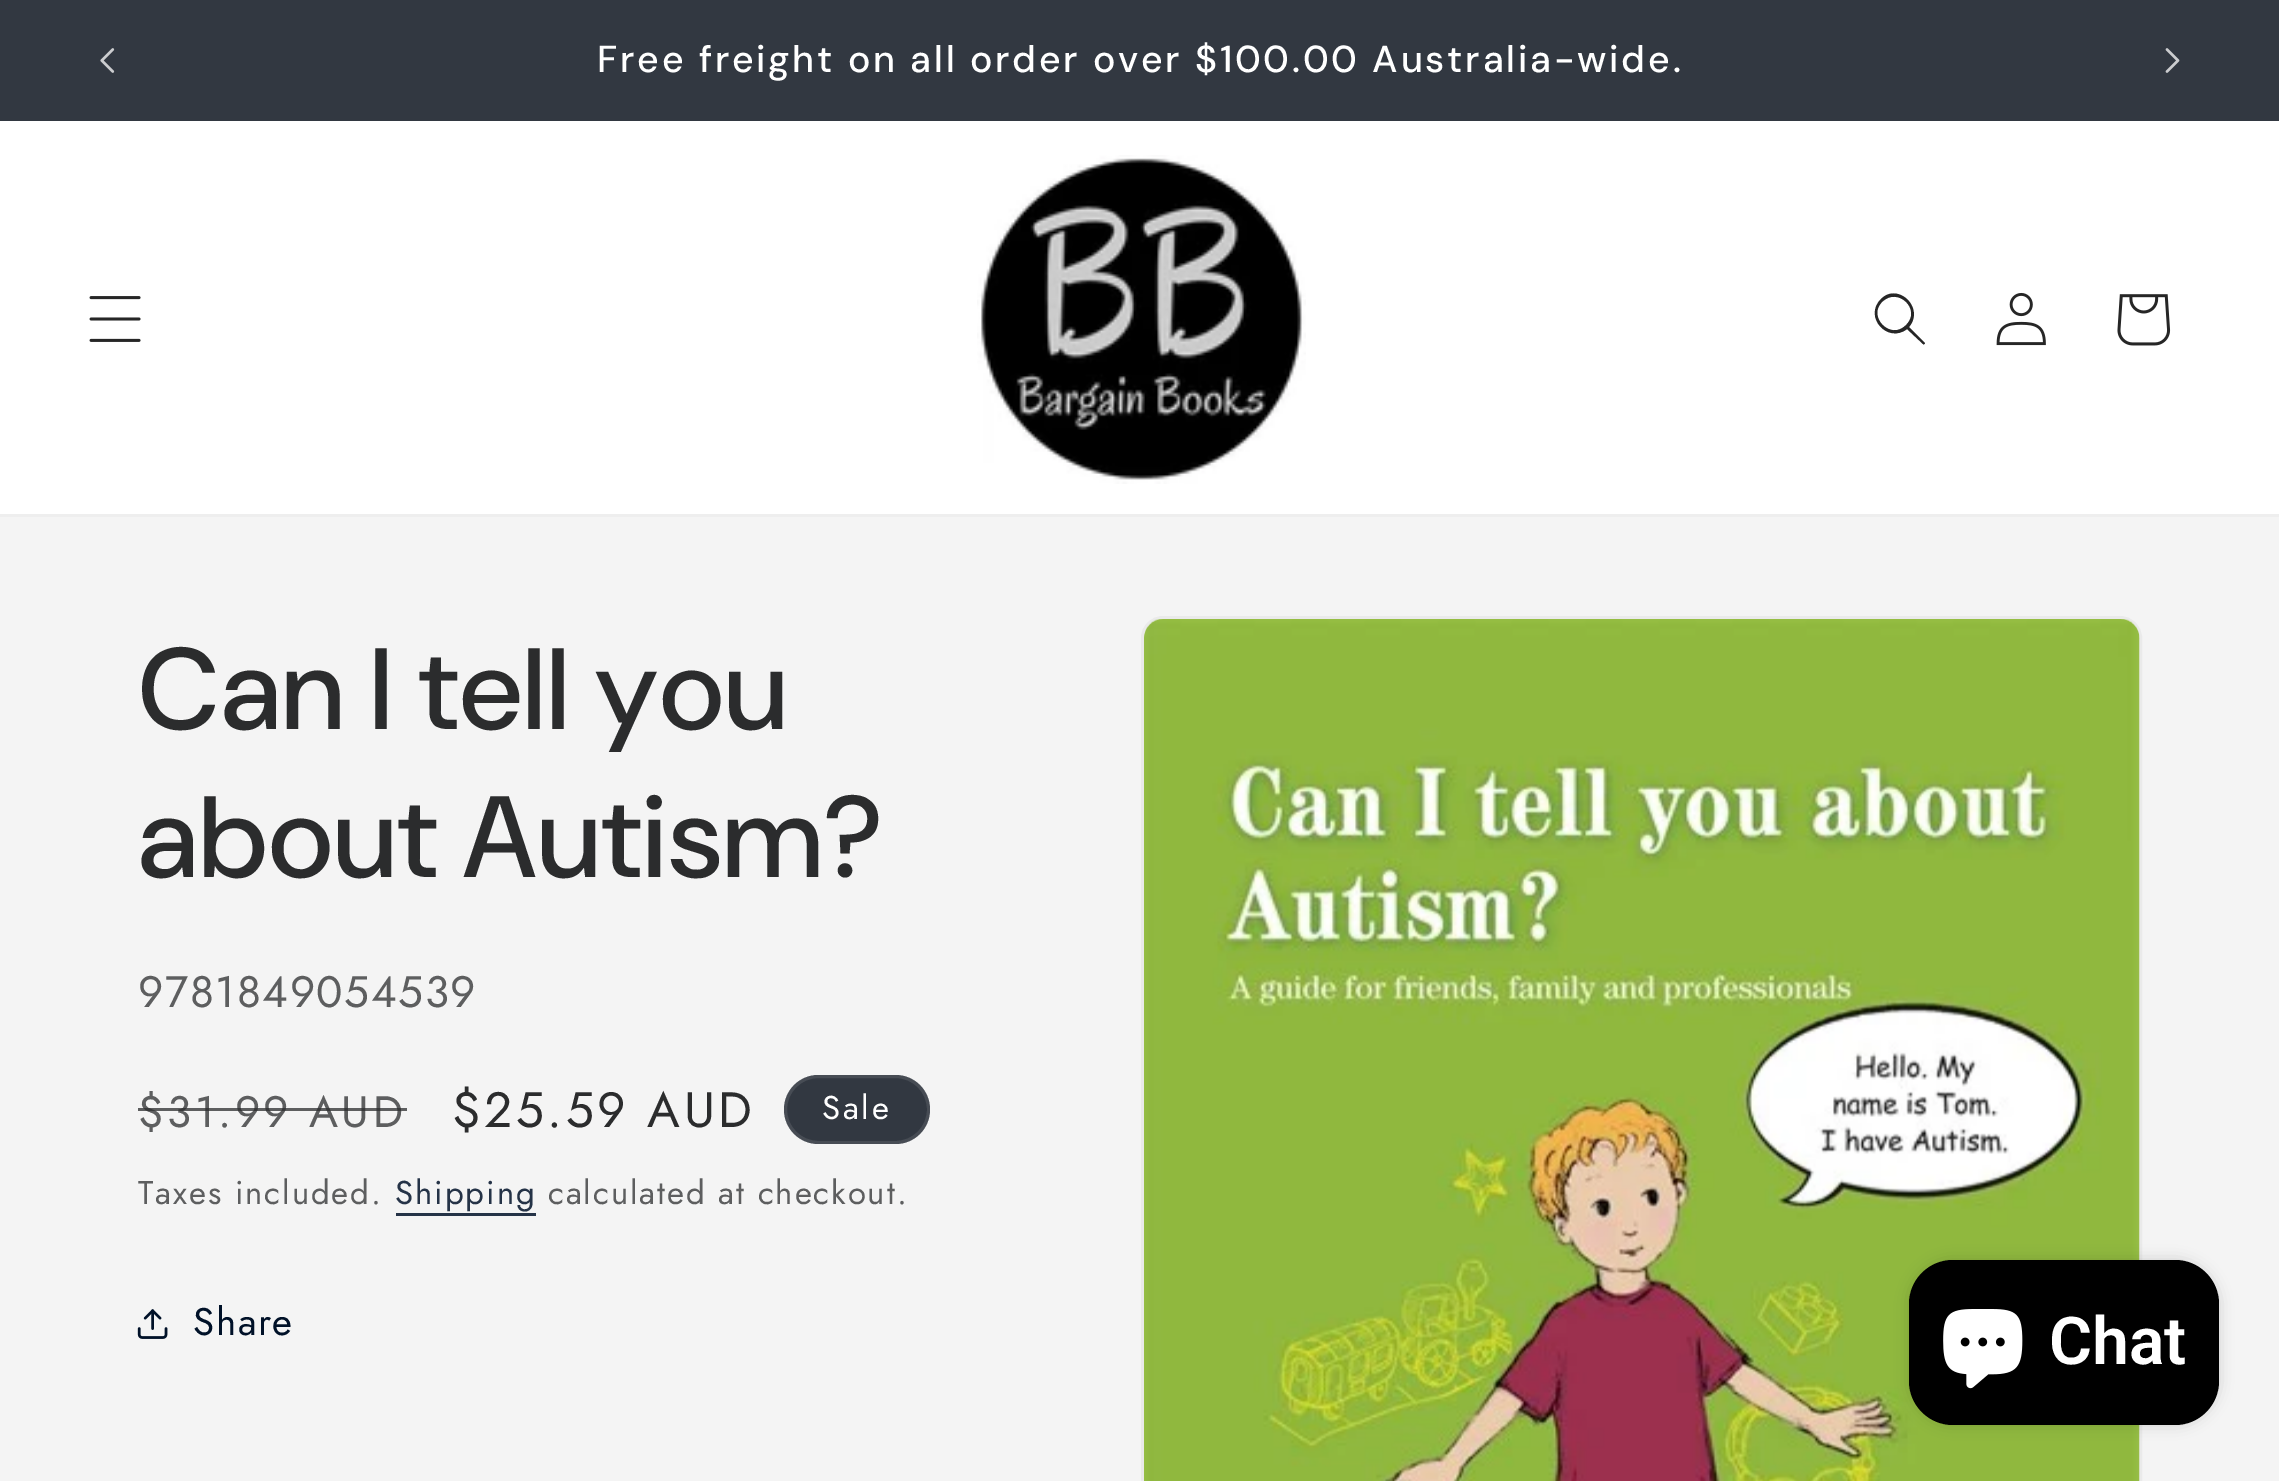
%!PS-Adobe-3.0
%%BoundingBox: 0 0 2279 1481
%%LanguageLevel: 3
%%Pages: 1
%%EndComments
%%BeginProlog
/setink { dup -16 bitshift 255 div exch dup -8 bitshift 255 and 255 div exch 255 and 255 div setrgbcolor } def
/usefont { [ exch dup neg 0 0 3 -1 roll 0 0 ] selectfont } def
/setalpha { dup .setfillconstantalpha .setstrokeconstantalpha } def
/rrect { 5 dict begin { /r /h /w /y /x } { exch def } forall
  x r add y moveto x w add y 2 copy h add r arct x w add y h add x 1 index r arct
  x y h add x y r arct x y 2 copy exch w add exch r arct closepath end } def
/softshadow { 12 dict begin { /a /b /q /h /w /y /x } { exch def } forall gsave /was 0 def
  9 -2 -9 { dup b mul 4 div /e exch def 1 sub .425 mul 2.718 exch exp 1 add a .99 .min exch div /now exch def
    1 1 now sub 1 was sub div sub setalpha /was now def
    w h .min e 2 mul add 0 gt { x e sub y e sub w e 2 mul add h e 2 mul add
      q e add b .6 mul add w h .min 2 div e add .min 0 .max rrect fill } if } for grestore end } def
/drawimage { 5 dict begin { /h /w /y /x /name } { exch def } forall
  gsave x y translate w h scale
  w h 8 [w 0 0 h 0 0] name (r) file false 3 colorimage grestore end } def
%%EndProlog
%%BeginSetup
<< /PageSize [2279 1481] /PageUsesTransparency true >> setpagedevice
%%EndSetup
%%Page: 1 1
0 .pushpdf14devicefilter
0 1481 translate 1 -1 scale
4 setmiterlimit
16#F4F4F4 setink
0 0 2279 1481 rectfill
16#323841 setink
0 0 2279 121 rectfill
(img1.raw) 100 48 15 25 drawimage
/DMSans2-Medium 37.55 usefont
16#FFFFFF setink
597 72 moveto 2.75 0 (Free freight on all order over $100.00 Australia-wide.) ashow
(img2.raw) 2165 48 15 25 drawimage
0 121 2279 393 rectfill
16#EEEEEE setink
0 514 2279 3 rectfill
(img3.raw) 89 296 52 46 drawimage
(img4.raw) 977 155 329 329 drawimage
16#262626 setink
1906 325 moveto 1891 341 1867 317 1882 302 curveto 1898 286 1922 310 1906 325 curveto 1907 329 moveto 1888 344 1863 317 1881 299 curveto 1898 282 1925 308 1909 327 curveto 1925 343 lineto 1925 344 1923 345 1923 344 curveto closepath eofill
(img5.raw) 1996 292 50 54 drawimage
(img6.raw) 2117 294 54 52 drawimage
/DMSans-Medium 115.5 usefont
16#2B2C2D setink
138 729 moveto 1.75 0 (Can I tell you) ashow
138 877 moveto 1.75 0 (about Autism?) ashow
/Jost-Regular 44 usefont
16#5D5E5F setink
138 1007 moveto 1.6 0 (9781849054539) ashow
138 1127 moveto 3.5 0 ($31.99 AUD) ashow
0.75 setalpha
16#2B2C2D setink
138 1108 269 3 rectfill
/Jost-Regular 49.5 usefont
1 setalpha
452 1127 moveto 3.5 0 ($25.59 AUD) ashow
16#323841 setink
784 1075 146 69 34.5 rrect fill
0.1 setalpha
16#FFFFFF setink
3 setlinewidth
785.5 1076.5 143 66 33 rrect stroke
/Jost-Regular 33 usefont
1 setalpha
822 1119 moveto 2.75 0 (Sale) ashow
16#5D5E5F setink
138 1204 moveto 1.9 0 (Taxes included.) ashow
16#253347 setink
395 1204 moveto 1.9 0 (Shipping) ashow
396 1213 140 3 rectfill
16#5D5E5F setink
548 1204 moveto 1.9 0 (calculated at checkout.) ashow
(img7.raw) 137 1309 31 30 drawimage
/Jost-Regular 38.5 usefont
16#001128 setink
193 1335 moveto 1.6 0 (Share) ashow
16#EAEAEA setink
1142.5 617.5 998 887 20.5 rrect stroke
(img8.raw) 1144 619 996 862 drawimage
16#000000 setink
1909 1260 310 165 44 7 0.15 softshadow
1909 1260 310 165 44 rrect fill
(img9.raw) 1943 1309 80 80 drawimage
/Roboto-SemiBold 66 usefont
16#FFFFFF setink
2049 1364 moveto (Chat) show
.poppdf14devicefilter showpage
%%EOF
